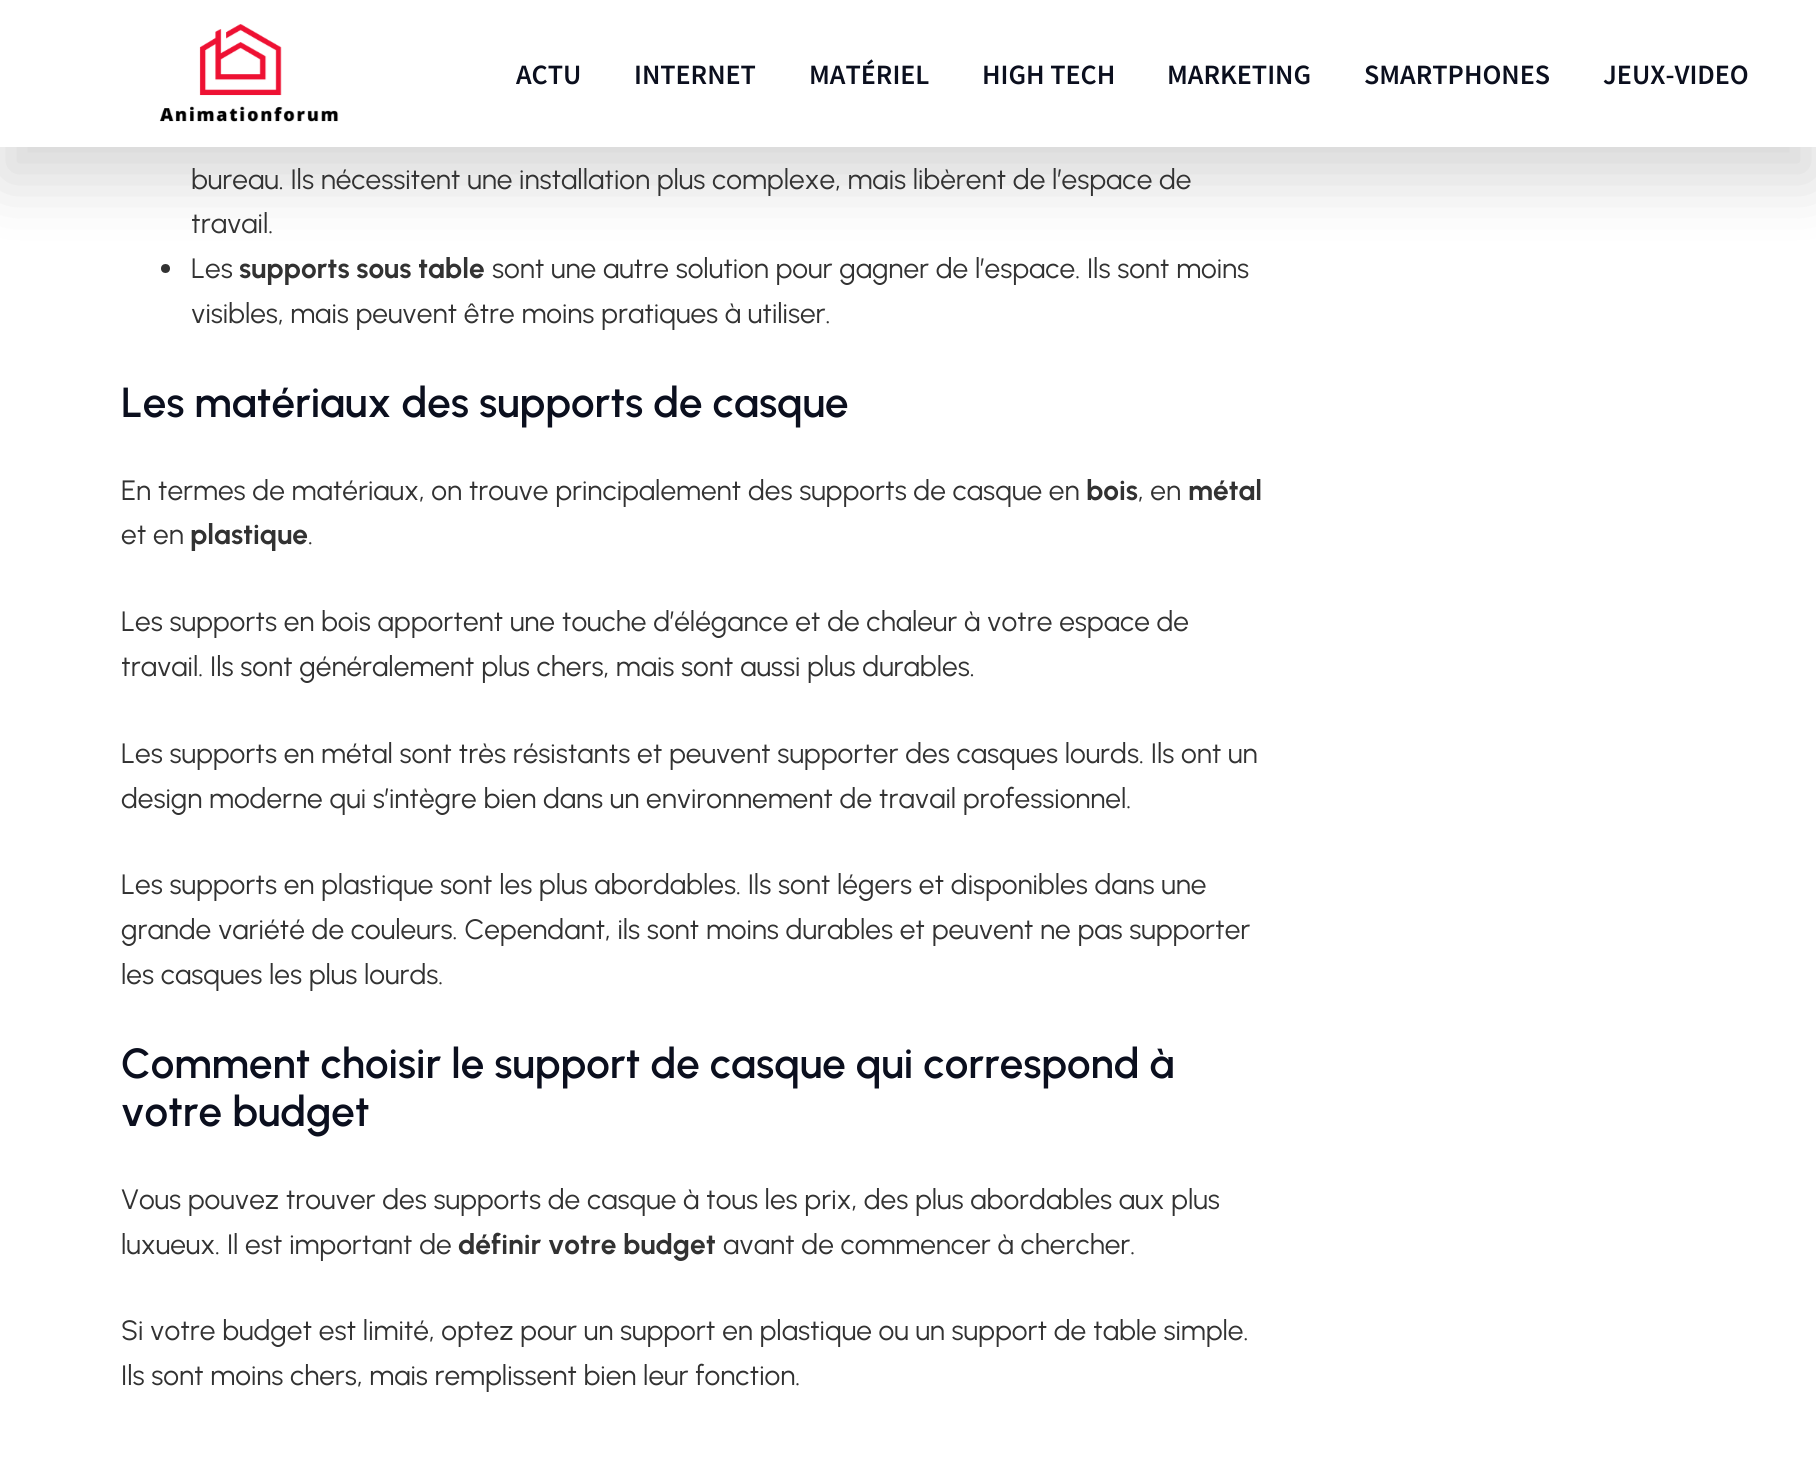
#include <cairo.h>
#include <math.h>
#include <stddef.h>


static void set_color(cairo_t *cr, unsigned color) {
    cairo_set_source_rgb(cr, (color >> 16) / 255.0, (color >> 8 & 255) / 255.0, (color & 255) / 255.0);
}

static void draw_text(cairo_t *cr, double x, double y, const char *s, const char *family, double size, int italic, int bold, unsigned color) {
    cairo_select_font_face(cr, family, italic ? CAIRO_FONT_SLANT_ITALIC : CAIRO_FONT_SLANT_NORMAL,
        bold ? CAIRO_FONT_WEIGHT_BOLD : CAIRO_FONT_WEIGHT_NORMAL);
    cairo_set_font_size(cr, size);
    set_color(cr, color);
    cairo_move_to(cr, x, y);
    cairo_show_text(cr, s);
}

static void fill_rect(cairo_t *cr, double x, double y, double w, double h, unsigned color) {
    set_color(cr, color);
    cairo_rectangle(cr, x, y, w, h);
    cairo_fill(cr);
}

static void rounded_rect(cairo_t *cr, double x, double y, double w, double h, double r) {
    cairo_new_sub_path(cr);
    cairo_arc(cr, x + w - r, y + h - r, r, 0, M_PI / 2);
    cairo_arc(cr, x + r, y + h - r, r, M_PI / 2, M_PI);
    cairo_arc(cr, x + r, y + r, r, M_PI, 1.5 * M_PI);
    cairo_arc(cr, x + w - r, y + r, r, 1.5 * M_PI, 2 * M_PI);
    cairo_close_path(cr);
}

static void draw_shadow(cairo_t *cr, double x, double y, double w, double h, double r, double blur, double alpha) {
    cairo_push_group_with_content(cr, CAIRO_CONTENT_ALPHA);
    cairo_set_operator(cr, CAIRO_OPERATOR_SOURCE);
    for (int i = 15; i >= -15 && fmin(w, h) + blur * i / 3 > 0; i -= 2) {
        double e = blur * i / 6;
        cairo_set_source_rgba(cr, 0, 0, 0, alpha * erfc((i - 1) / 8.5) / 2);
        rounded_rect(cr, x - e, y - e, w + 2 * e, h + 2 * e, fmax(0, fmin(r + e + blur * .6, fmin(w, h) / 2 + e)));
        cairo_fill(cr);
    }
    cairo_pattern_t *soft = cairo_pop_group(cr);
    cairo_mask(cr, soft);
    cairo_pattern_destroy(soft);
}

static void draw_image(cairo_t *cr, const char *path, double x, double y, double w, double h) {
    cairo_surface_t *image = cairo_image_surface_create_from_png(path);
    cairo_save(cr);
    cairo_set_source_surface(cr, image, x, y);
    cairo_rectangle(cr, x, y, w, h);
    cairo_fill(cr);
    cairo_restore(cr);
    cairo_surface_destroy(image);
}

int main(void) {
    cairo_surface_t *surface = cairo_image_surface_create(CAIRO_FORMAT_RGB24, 1816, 1460);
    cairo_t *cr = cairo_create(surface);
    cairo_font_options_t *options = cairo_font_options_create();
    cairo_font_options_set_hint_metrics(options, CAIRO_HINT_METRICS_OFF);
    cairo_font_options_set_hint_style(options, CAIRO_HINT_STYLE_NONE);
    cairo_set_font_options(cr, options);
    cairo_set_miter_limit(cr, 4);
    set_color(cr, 0xFFFFFF);
    cairo_paint(cr);
    set_color(cr, 0x323232);
    cairo_arc(cr, 165.5, 268.5, 4.5, 0, 2 * M_PI);
    cairo_fill(cr);
    set_color(cr, 0x000000);
    draw_shadow(cr, 0, 33, 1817, 147, 0, 33, 0.16);
    fill_rect(cr, 0, 0, 1816, 147, 0xFFFFFF);
    draw_image(cr, "assets/img1.png", 159, 24, 180, 98);
    draw_text(cr, 516, 84, "ACTU", "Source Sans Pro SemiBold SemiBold", 28, 0, 0, 0x0B0F1E);
    draw_text(cr, 634, 84, "INTERNET", "Source Sans Pro SemiBold SemiBold", 28, 0, 0, 0x0B0F1E);
    draw_text(cr, 809, 84, "MATÉRIEL", "Source Sans Pro SemiBold SemiBold", 28, 0, 0, 0x0B0F1E);
    draw_text(cr, 982, 84, "HIGH TECH", "Source Sans Pro SemiBold SemiBold", 28, 0, 0, 0x0B0F1E);
    draw_text(cr, 1167, 84, "MARKETING", "Source Sans Pro SemiBold SemiBold", 28, 0, 0, 0x0B0F1E);
    draw_text(cr, 1364, 84, "SMARTPHONES", "Source Sans Pro SemiBold SemiBold", 28, 0, 0, 0x0B0F1E);
    draw_text(cr, 1603, 84, "JEUX-VIDEO", "Source Sans Pro SemiBold SemiBold", 28, 0, 0, 0x0B0F1E);
    draw_text(cr, 191, 189, "bureau. Ils nécessitent une installation plus complexe, mais libèrent de l’espace de", "Urbanist", 28, 0, 0, 0x323232);
    draw_text(cr, 191, 233, "travail.", "Urbanist", 28, 0, 0, 0x323232);
    draw_text(cr, 191, 278, "Les", "Urbanist", 28, 0, 0, 0x323232);
    draw_text(cr, 239, 278, "supports sous table", "Urbanist", 28, 0, 1, 0x323232);
    draw_text(cr, 492, 278, "sont une autre solution pour gagner de l’espace. Ils sont moins", "Urbanist", 28, 0, 0, 0x323232);
    draw_text(cr, 191, 323, "visibles, mais peuvent être moins pratiques à utiliser.", "Urbanist", 28, 0, 0, 0x323232);
    draw_text(cr, 121, 417, "Les matériaux des supports de casque", "Urbanist SemiBold", 42, 0, 0, 0x0B0F1E);
    draw_text(cr, 121, 500, "En termes de matériaux, on trouve principalement des supports de casque en", "Urbanist", 28, 0, 0, 0x323232);
    draw_text(cr, 1086, 500, "bois", "Urbanist", 28, 0, 1, 0x323232);
    draw_text(cr, 1138, 500, ", en", "Urbanist", 28, 0, 0, 0x323232);
    draw_text(cr, 1188, 500, "métal", "Urbanist", 28, 0, 1, 0x323232);
    draw_text(cr, 121, 544, "et en", "Urbanist", 28, 0, 0, 0x323232);
    draw_text(cr, 190, 544, "plastique", "Urbanist", 28, 0, 1, 0x323232);
    draw_text(cr, 308, 544, ".", "Urbanist", 28, 0, 0, 0x323232);
    draw_text(cr, 121, 631, "Les supports en bois apportent une touche d’élégance et de chaleur à votre espace de", "Urbanist", 28, 0, 0, 0x323232);
    draw_text(cr, 121, 676, "travail. Ils sont généralement plus chers, mais sont aussi plus durables.", "Urbanist", 28, 0, 0, 0x323232);
    draw_text(cr, 121, 763, "Les supports en métal sont très résistants et peuvent supporter des casques lourds. Ils ont un", "Urbanist", 28, 0, 0, 0x323232);
    draw_text(cr, 121, 808, "design moderne qui s’intègre bien dans un environnement de travail professionnel.", "Urbanist", 28, 0, 0, 0x323232);
    draw_text(cr, 121, 894, "Les supports en plastique sont les plus abordables. Ils sont légers et disponibles dans une", "Urbanist", 28, 0, 0, 0x323232);
    draw_text(cr, 121, 939, "grande variété de couleurs. Cependant, ils sont moins durables et peuvent ne pas supporter", "Urbanist", 28, 0, 0, 0x323232);
    draw_text(cr, 121, 984, "les casques les plus lourds.", "Urbanist", 28, 0, 0, 0x323232);
    draw_text(cr, 121, 1078, "Comment choisir le support de casque qui correspond à", "Urbanist SemiBold", 42, 0, 0, 0x0B0F1E);
    draw_text(cr, 121, 1126, "votre budget", "Urbanist SemiBold", 42, 0, 0, 0x0B0F1E);
    draw_text(cr, 121, 1209, "Vous pouvez trouver des supports de casque à tous les prix, des plus abordables aux plus", "Urbanist", 28, 0, 0, 0x323232);
    draw_text(cr, 121, 1254, "luxueux. Il est important de", "Urbanist", 28, 0, 0, 0x323232);
    draw_text(cr, 458, 1254, "définir votre budget", "Urbanist", 28, 0, 1, 0x323232);
    draw_text(cr, 723, 1254, "avant de commencer à chercher.", "Urbanist", 28, 0, 0, 0x323232);
    draw_text(cr, 121, 1340, "Si votre budget est limité, optez pour un support en plastique ou un support de table simple.", "Urbanist", 28, 0, 0, 0x323232);
    draw_text(cr, 121, 1385, "Ils sont moins chers, mais remplissent bien leur fonction.", "Urbanist", 28, 0, 0, 0x323232);
    cairo_surface_write_to_png(surface, "output.png");
    cairo_font_options_destroy(options);
    cairo_destroy(cr);
    cairo_surface_destroy(surface);
    return 0;
}
